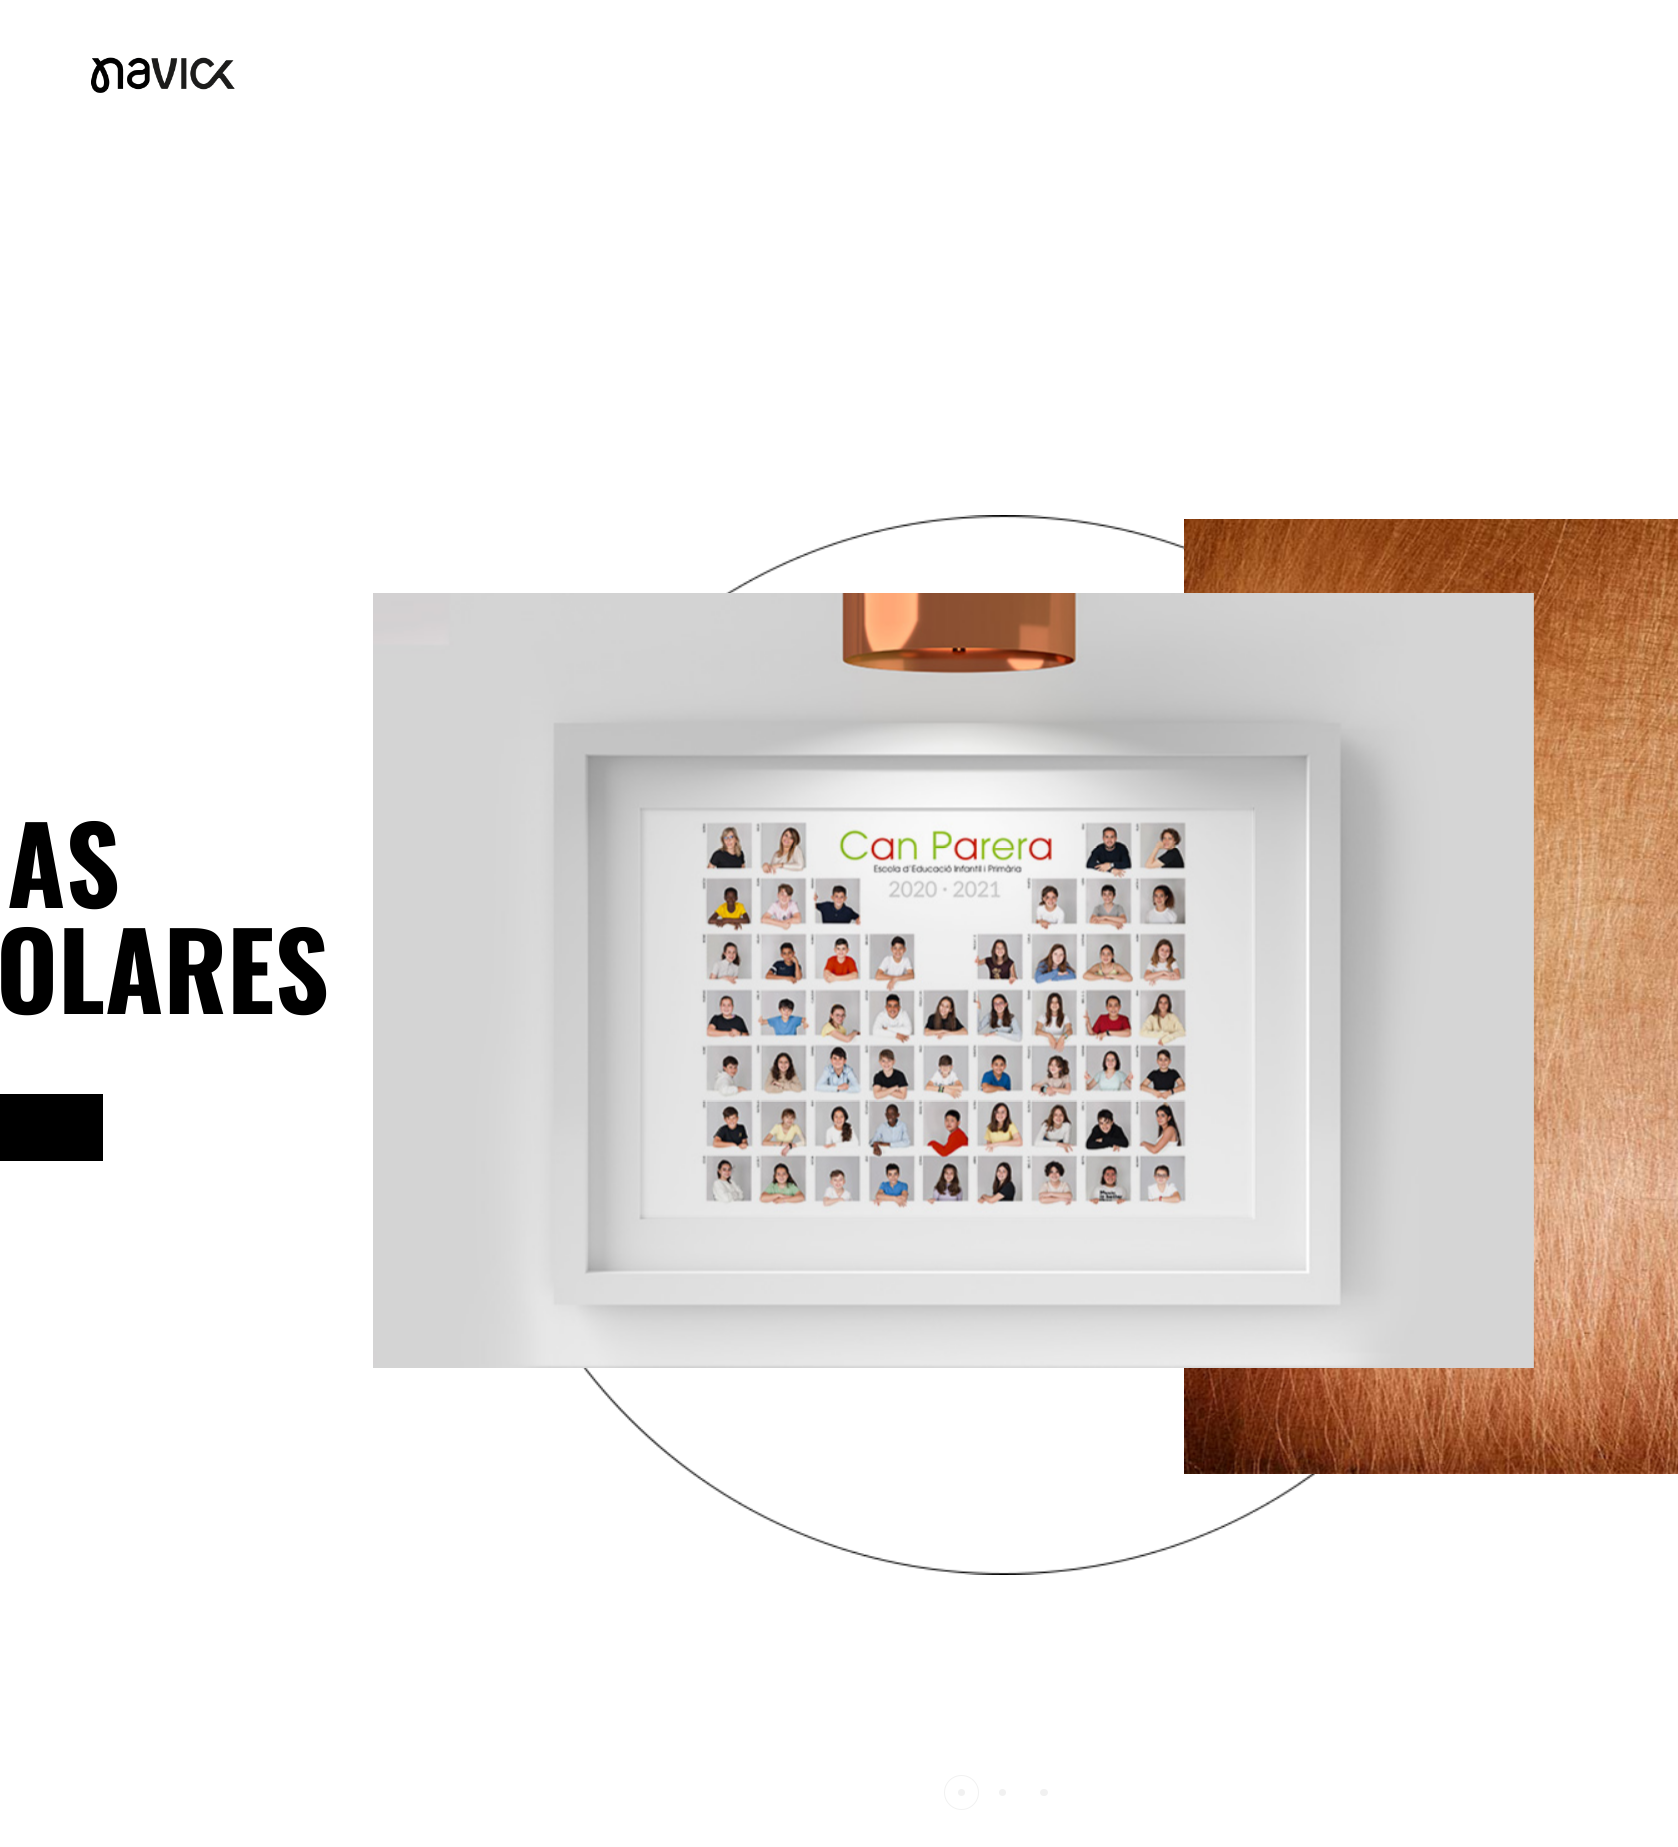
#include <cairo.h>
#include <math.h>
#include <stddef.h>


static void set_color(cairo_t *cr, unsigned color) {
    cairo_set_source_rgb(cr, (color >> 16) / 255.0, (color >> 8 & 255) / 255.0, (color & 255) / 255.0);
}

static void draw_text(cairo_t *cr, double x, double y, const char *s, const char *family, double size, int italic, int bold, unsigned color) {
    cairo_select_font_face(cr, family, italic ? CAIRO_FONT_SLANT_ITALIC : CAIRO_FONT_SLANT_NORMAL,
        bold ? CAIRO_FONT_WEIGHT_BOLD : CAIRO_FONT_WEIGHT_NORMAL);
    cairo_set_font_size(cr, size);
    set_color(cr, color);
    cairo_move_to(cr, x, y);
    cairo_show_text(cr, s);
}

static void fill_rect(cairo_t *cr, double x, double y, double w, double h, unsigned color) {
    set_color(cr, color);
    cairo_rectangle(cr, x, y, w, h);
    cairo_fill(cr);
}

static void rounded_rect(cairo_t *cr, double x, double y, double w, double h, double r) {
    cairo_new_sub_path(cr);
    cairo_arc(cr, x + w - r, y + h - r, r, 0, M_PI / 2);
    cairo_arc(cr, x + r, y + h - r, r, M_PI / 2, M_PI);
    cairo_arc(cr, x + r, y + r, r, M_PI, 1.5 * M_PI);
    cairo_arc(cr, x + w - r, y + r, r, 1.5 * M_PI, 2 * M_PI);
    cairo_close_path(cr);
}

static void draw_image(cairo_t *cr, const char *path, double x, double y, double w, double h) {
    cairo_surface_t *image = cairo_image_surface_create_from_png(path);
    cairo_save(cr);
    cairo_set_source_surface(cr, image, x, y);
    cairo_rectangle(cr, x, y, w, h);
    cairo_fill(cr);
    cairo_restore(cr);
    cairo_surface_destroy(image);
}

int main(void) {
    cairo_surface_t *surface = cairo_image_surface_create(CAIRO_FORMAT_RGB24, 1678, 1847);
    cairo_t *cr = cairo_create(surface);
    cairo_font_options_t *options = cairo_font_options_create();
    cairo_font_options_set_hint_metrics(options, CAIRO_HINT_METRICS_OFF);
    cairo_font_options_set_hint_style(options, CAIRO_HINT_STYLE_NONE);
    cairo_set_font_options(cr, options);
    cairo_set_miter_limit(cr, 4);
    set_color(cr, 0xFFFFFF);
    cairo_paint(cr);
    draw_image(cr, "assets/img1.png", 91, 57, 144, 36);
    draw_image(cr, "assets/img2.png", 582, 515, 733, 1060);
    draw_image(cr, "assets/img3.png", 1184, 519, 494, 955);
    draw_text(cr, 7, 908, "AS", "Oswald", 106, 0, 1, 0x000000);
    draw_text(cr, -4, 1014, "OLARES", "Oswald", 106, 0, 1, 0x000000);
    draw_image(cr, "assets/img4.png", 373, 593, 1161, 775);
    fill_rect(cr, 0, 1094, 103, 67, 0x000000);
    cairo_arc(cr, 961.5, 1792.5, 17, 0, 2 * M_PI);
    set_color(cr, 0xF1F1F1);
    cairo_set_line_width(cr, 1);
    cairo_stroke(cr);
    cairo_arc(cr, 961.5, 1792.5, 3.5, 0, 2 * M_PI);
    cairo_fill(cr);
    cairo_arc(cr, 1002.5, 1792.5, 3.5, 0, 2 * M_PI);
    cairo_fill(cr);
    rounded_rect(cr, 1040, 1789, 8, 7, 3.5);
    cairo_fill(cr);
    cairo_surface_write_to_png(surface, "output.png");
    cairo_font_options_destroy(options);
    cairo_destroy(cr);
    cairo_surface_destroy(surface);
    return 0;
}
